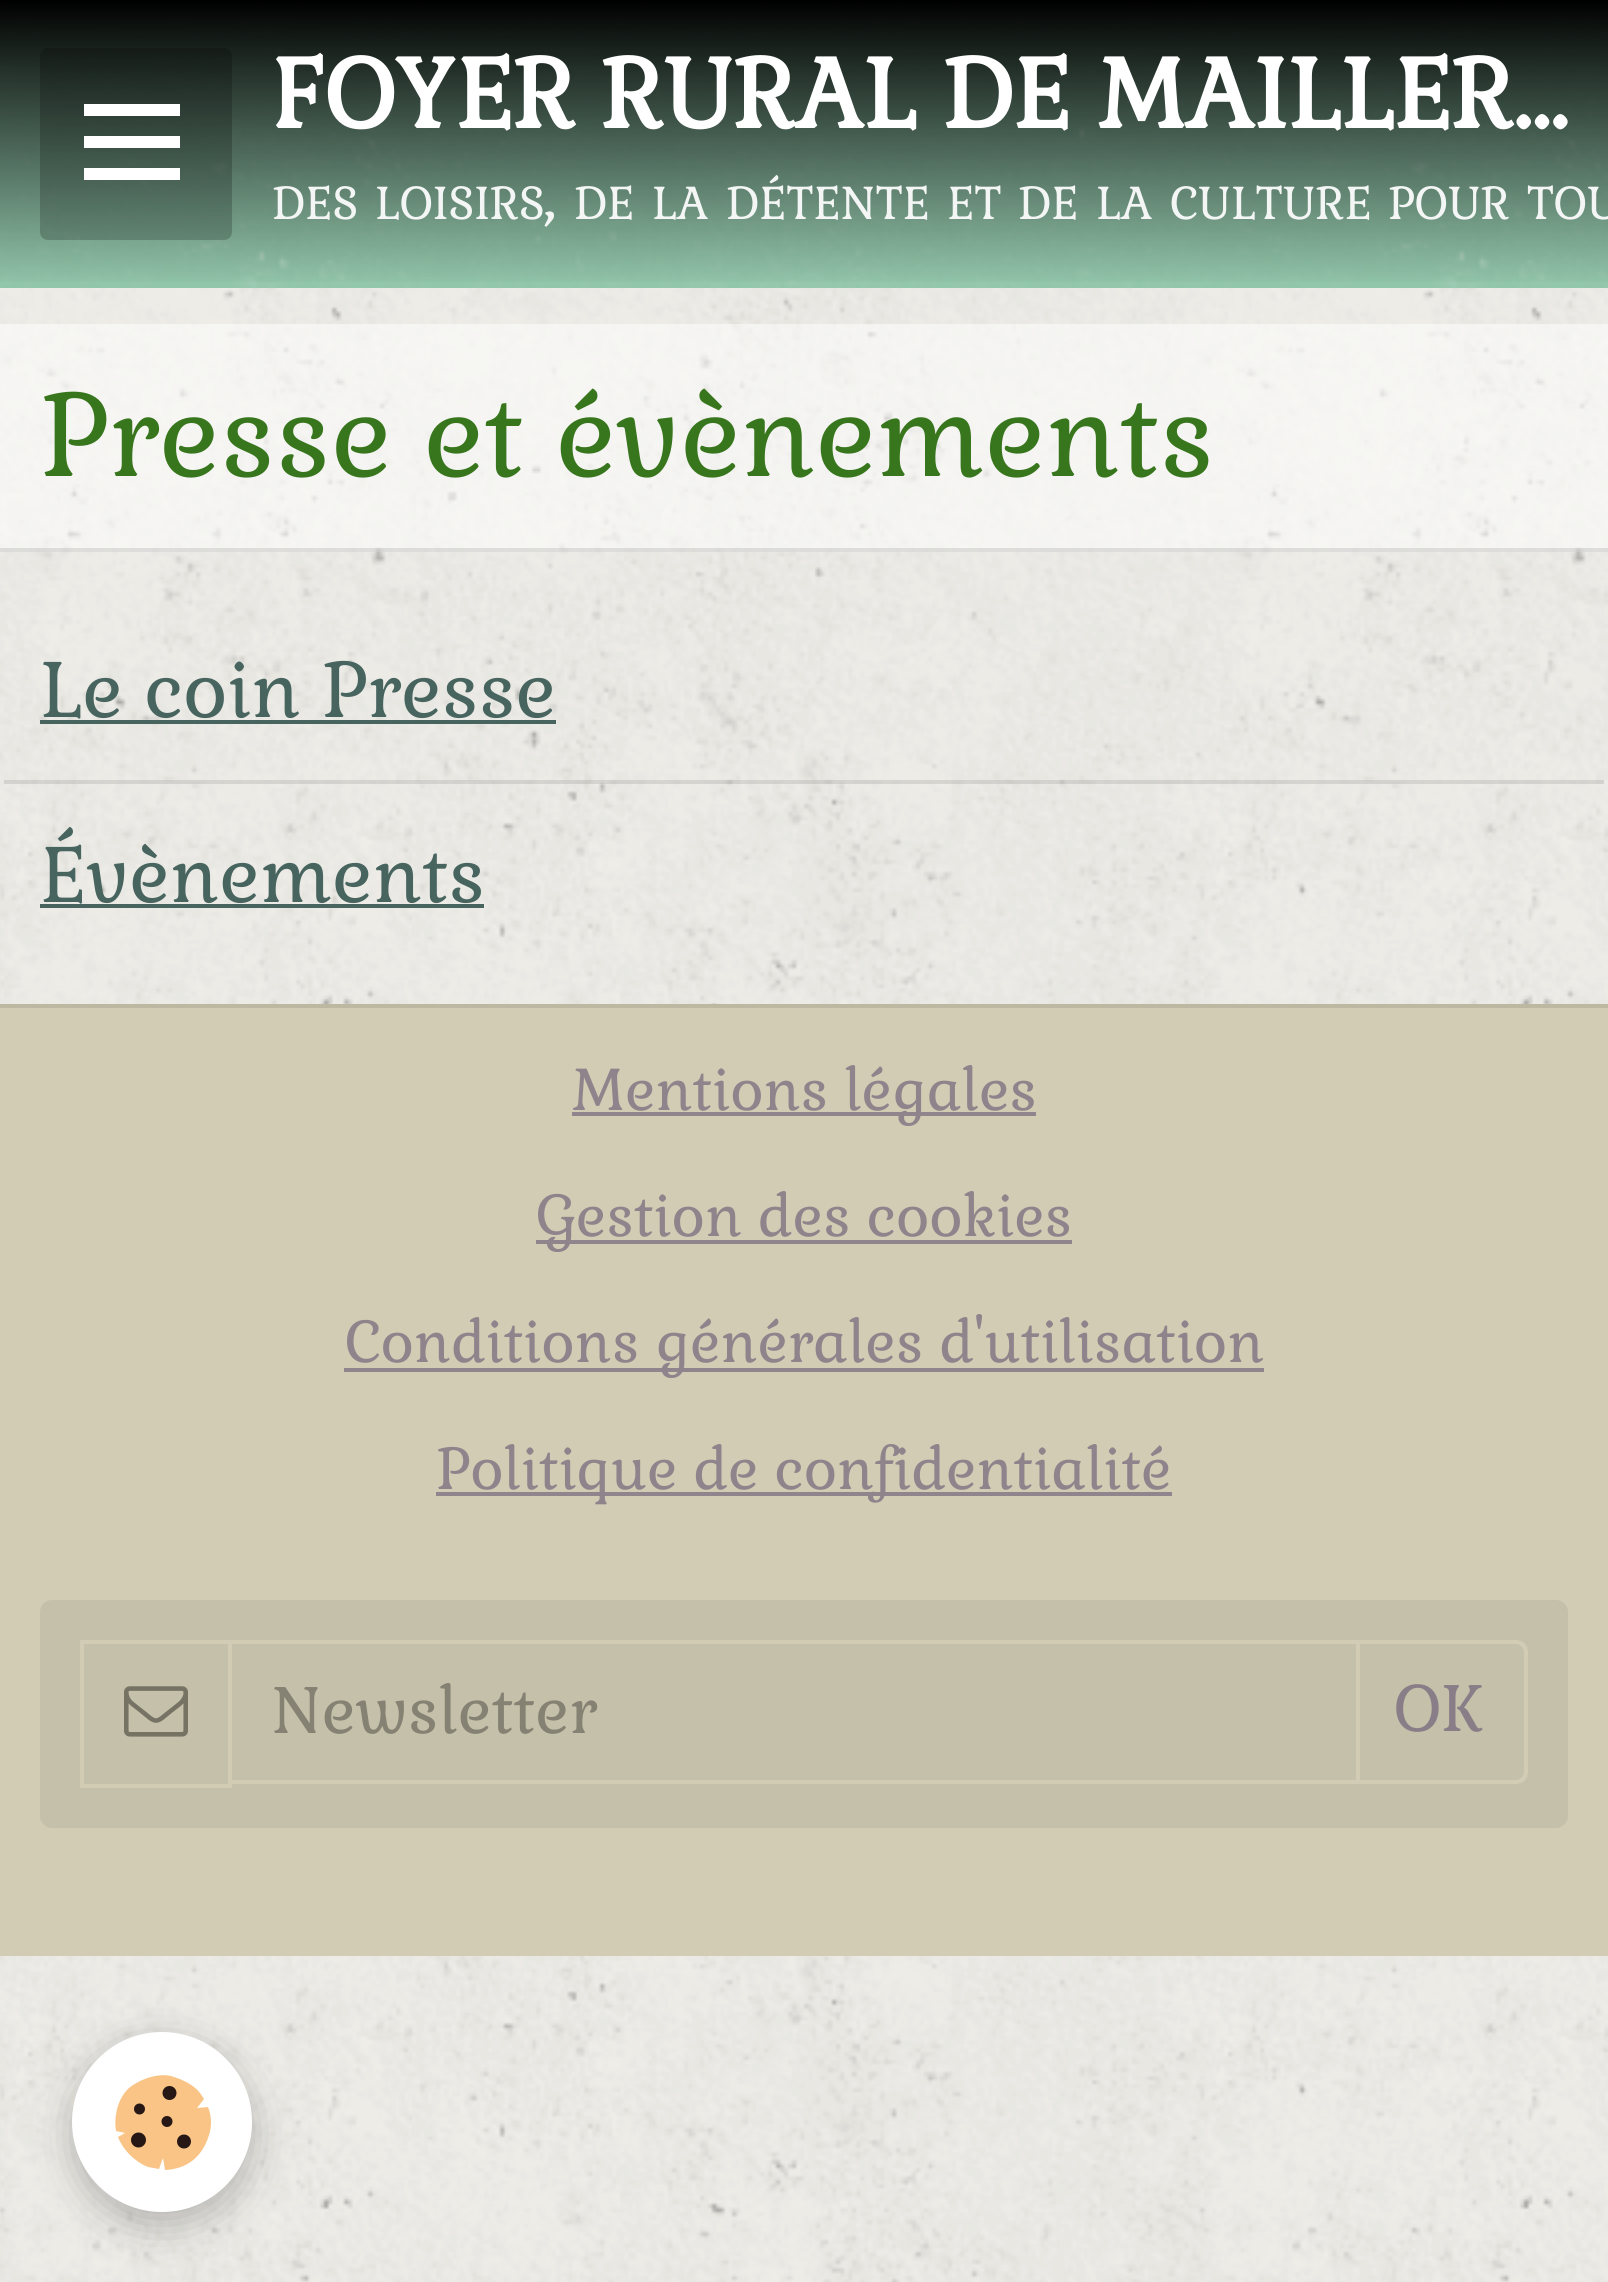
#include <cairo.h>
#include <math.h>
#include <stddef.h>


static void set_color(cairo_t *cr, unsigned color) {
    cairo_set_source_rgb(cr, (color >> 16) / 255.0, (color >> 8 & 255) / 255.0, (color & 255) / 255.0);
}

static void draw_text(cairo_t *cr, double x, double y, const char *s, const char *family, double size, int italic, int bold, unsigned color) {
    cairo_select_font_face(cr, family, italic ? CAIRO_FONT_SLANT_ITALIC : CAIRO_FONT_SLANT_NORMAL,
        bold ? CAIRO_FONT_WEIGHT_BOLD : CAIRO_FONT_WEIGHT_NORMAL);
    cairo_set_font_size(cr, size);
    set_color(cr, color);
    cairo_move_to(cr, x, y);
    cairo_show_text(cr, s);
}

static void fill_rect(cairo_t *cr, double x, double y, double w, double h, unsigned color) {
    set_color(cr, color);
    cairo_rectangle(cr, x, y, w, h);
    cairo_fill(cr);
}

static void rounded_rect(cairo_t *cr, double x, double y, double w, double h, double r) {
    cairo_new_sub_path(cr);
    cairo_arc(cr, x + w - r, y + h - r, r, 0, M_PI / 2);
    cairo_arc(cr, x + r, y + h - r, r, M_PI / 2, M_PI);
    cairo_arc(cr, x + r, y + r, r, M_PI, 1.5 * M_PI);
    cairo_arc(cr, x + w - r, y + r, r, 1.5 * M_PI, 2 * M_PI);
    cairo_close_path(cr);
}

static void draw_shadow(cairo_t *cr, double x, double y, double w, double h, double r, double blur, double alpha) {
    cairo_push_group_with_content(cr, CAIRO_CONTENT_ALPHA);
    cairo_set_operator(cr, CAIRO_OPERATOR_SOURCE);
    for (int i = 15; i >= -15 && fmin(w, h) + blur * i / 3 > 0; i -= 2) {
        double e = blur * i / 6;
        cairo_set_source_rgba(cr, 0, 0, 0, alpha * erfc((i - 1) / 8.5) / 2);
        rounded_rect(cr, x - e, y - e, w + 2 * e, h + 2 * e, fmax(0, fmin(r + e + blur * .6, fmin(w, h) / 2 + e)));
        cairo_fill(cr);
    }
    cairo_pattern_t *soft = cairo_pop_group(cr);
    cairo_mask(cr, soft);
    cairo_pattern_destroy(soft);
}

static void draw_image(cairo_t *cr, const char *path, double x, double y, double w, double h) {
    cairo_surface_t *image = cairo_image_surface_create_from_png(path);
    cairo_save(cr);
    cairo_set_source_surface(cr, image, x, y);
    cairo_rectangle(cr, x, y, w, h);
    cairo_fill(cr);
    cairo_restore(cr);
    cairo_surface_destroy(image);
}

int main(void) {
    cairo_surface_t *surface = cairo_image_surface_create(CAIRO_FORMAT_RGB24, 1608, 2282);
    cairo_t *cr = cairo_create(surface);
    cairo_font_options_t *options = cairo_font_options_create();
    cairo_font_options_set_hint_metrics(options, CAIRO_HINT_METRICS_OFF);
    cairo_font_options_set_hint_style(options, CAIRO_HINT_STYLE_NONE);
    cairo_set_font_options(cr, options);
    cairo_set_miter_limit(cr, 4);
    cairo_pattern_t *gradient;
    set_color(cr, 0xF1F0EB);
    cairo_paint(cr);
    draw_image(cr, "assets/img1.png", 0, 288, 1608, 1994);
    fill_rect(cr, 0, 2, 1608, 286, 0x90C5A9);
    draw_image(cr, "assets/img2.png", 0, 2, 1608, 286);
    gradient = cairo_pattern_create_linear(804, 0, 804, 288);
    cairo_pattern_add_color_stop_rgba(gradient, 0, 0, 0, 0, 1);
    cairo_pattern_add_color_stop_rgba(gradient, 1, 0, 0, 0, 0);
    cairo_set_source(cr, gradient);
    cairo_pattern_destroy(gradient);
    cairo_rectangle(cr, 0, 0, 1608, 282);
    cairo_fill(cr);
    cairo_set_source_rgba(cr, 0, 0, 0, 0.2);
    rounded_rect(cr, 40, 48, 192, 192, 8);
    cairo_fill(cr);
    fill_rect(cr, 84, 136, 96, 12, 0xFFFFFF);
    fill_rect(cr, 84, 104, 96, 12, 0xFFFFFF);
    fill_rect(cr, 84, 168, 96, 12, 0xFFFFFF);
    draw_text(cr, 272, 128, "FOYER RURAL DE MAILLER…", "Gabriela", 96, 0, 1, 0xFFFFFF);
    draw_text(cr, 272, 219, "DES", "Gabriela", 45, 0, 0, 0xF3F6F4);
    draw_text(cr, 375, 219, "LOISIRS", "Gabriela", 45, 0, 0, 0xF3F6F4);
    draw_text(cr, 544, 219, ",", "Gabriela", 64, 0, 0, 0xF3F6F4);
    draw_text(cr, 574, 219, "DE", "Gabriela", 45, 0, 0, 0xF3F6F4);
    draw_text(cr, 652, 219, "LA", "Gabriela", 45, 0, 0, 0xF3F6F4);
    draw_text(cr, 726, 219, "DÉTENTE", "Gabriela", 45, 0, 0, 0xF3F6F4);
    draw_text(cr, 947, 219, "ET", "Gabriela", 45, 0, 0, 0xF3F6F4);
    draw_text(cr, 1018, 219, "DE", "Gabriela", 45, 0, 0, 0xF3F6F4);
    draw_text(cr, 1096, 219, "LA", "Gabriela", 45, 0, 0, 0xF3F6F4);
    draw_text(cr, 1170, 219, "CULTURE", "Gabriela", 45, 0, 0, 0xF3F6F4);
    draw_text(cr, 1388, 219, "POUR", "Gabriela", 45, 0, 0, 0xF3F6F4);
    draw_text(cr, 1527, 219, "TOU", "Gabriela", 45, 0, 0, 0xF3F6F4);
    cairo_set_source_rgba(cr, 1, 1, 1, 0.5);
    cairo_rectangle(cr, 0, 324, 1608, 228);
    cairo_fill(cr);
    cairo_set_source_rgba(cr, 0, 0, 0, 0.1);
    cairo_rectangle(cr, 0, 548, 1608, 4);
    cairo_fill(cr);
    draw_text(cr, 40, 476, "Presse et évènements", "Gabriela", 115.25, 0, 0, 0x38761D);
    cairo_set_source_rgba(cr, 0, 0, 0, 0.1);
    cairo_rectangle(cr, 4, 780, 1600, 4);
    cairo_fill(cr);
    draw_text(cr, 40, 717, "Le coin Presse", "Gabriela", 76.75, 0, 0, 0x48645F);
    cairo_set_source_rgba(cr, 0.255, 0.373, 0.353, 0.96);
    cairo_rectangle(cr, 40, 720, 516, 4);
    cairo_fill(cr);
    draw_text(cr, 40, 902, "Évènements", "Gabriela", 76.75, 0, 0, 0x48645F);
    cairo_set_source_rgba(cr, 0.255, 0.373, 0.353, 0.96);
    cairo_rectangle(cr, 40, 904, 444, 4);
    cairo_fill(cr);
    fill_rect(cr, 0, 1008, 1608, 948, 0xD1CCB3);
    fill_rect(cr, 0, 1004, 1608, 4, 0xBCB8A1);
    fill_rect(cr, 572, 1112, 464, 4, 0x90848D);
    draw_text(cr, 572, 1110, "Mentions légales", "Gabriela", 57.6, 0, 0, 0x8F848C);
    fill_rect(cr, 536, 1240, 536, 4, 0x90848D);
    draw_text(cr, 536, 1236, "Gestion des cookies", "Gabriela", 57.6, 0, 0, 0x8F848C);
    fill_rect(cr, 344, 1368, 920, 4, 0x90848D);
    draw_text(cr, 345, 1362, "Conditions générales d'utilisation", "Gabriela", 57.6, 0, 0, 0x8F848C);
    fill_rect(cr, 436, 1492, 736, 4, 0x90848D);
    draw_text(cr, 436, 1489, "Politique de confidentialité", "Gabriela", 57.6, 0, 0, 0x8F848C);
    set_color(cr, 0xC4C0A9);
    rounded_rect(cr, 40, 1600, 1528, 228, 12);
    cairo_fill(cr);
    cairo_rectangle(cr, 82, 1642, 148, 144);
    set_color(cr, 0xD1CCB3);
    cairo_set_line_width(cr, 4);
    cairo_stroke(cr);
    draw_image(cr, "assets/img3.png", 124, 1686, 64, 51);
    cairo_rectangle(cr, 230, 1642, 1128, 140);
    cairo_stroke(cr);
    draw_text(cr, 272, 1733, "Newsletter", "Gabriela", 64, 0, 0, 0x858273);
    set_color(cr, 0xD1CCB3);
    cairo_set_fill_rule(cr, CAIRO_FILL_RULE_EVEN_ODD);
    cairo_new_path(cr);
    cairo_move_to(cr, 1356, 1640);
    cairo_line_to(cr, 1516, 1640);
    cairo_curve_to(cr, 1523, 1640, 1528, 1645, 1528, 1652);
    cairo_line_to(cr, 1528, 1772);
    cairo_curve_to(cr, 1528, 1779, 1523, 1784, 1516, 1784);
    cairo_line_to(cr, 1356, 1784);
    cairo_close_path(cr);
    cairo_move_to(cr, 1356, 1644);
    cairo_line_to(cr, 1516, 1644);
    cairo_curve_to(cr, 1520, 1644, 1524, 1648, 1524, 1652);
    cairo_line_to(cr, 1524, 1772);
    cairo_curve_to(cr, 1524, 1776, 1520, 1780, 1516, 1780);
    cairo_line_to(cr, 1356, 1780);
    cairo_close_path(cr);
    cairo_fill(cr);
    draw_text(cr, 1394, 1731, "OK", "Gabriela", 64, 0, 0, 0x897E88);
    set_color(cr, 0x000000);
    draw_shadow(cr, 72, 2044, 180, 180, 90, 20, 0.24);
    set_color(cr, 0xFFFFFF);
    cairo_arc(cr, 162, 2122, 90, 0, 2 * M_PI);
    cairo_fill(cr);
    set_color(cr, 0xF9C485);
    cairo_set_fill_rule(cr, CAIRO_FILL_RULE_WINDING);
    cairo_new_path(cr);
    cairo_move_to(cr, 159, 2169);
    cairo_line_to(cr, 163, 2158);
    cairo_line_to(cr, 165, 2170);
    cairo_curve_to(cr, 186, 2169, 201, 2158, 208, 2138);
    cairo_curve_to(cr, 212, 2128, 212, 2117, 208, 2107);
    cairo_line_to(cr, 197, 2108);
    cairo_line_to(cr, 204, 2099);
    cairo_curve_to(cr, 201, 2094, 198, 2090, 194, 2087);
    cairo_curve_to(cr, 185, 2080, 174, 2077, 171, 2076);
    cairo_curve_to(cr, 153, 2072, 132, 2084, 127, 2090);
    cairo_curve_to(cr, 116, 2102, 114, 2120, 116, 2131);
    cairo_line_to(cr, 125, 2133);
    cairo_line_to(cr, 118, 2137);
    cairo_curve_to(cr, 123, 2150, 135, 2162, 148, 2167);
    cairo_close_path(cr);
    cairo_fill(cr);
    set_color(cr, 0x281815);
    cairo_arc(cr, 184, 2141.5, 7, 0, 2 * M_PI);
    cairo_fill(cr);
    cairo_arc(cr, 169.5, 2093, 7, 0, 2 * M_PI);
    cairo_fill(cr);
    cairo_arc(cr, 138.5, 2140, 7.5, 0, 2 * M_PI);
    cairo_fill(cr);
    cairo_arc(cr, 167, 2121.5, 5.5, 0, 2 * M_PI);
    cairo_fill(cr);
    cairo_arc(cr, 139.5, 2109, 5.5, 0, 2 * M_PI);
    cairo_fill(cr);
    cairo_surface_write_to_png(surface, "output.png");
    cairo_font_options_destroy(options);
    cairo_destroy(cr);
    cairo_surface_destroy(surface);
    return 0;
}
